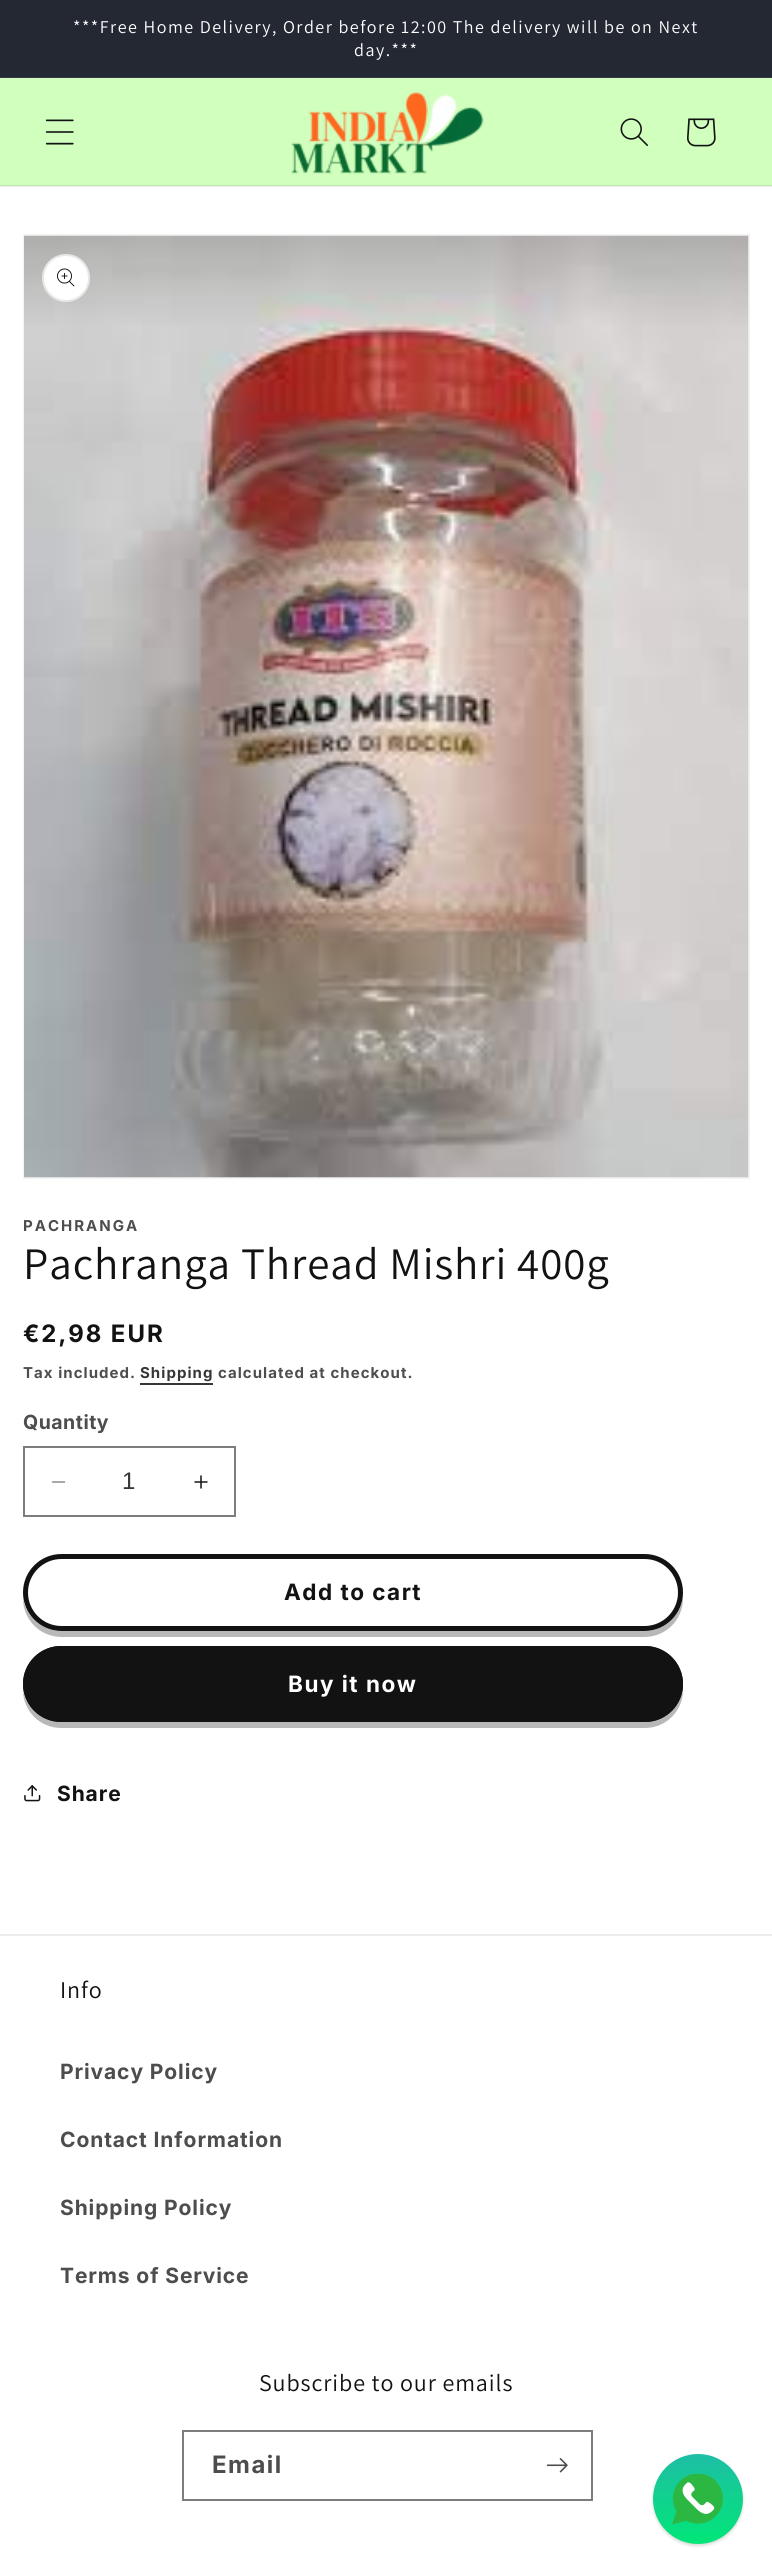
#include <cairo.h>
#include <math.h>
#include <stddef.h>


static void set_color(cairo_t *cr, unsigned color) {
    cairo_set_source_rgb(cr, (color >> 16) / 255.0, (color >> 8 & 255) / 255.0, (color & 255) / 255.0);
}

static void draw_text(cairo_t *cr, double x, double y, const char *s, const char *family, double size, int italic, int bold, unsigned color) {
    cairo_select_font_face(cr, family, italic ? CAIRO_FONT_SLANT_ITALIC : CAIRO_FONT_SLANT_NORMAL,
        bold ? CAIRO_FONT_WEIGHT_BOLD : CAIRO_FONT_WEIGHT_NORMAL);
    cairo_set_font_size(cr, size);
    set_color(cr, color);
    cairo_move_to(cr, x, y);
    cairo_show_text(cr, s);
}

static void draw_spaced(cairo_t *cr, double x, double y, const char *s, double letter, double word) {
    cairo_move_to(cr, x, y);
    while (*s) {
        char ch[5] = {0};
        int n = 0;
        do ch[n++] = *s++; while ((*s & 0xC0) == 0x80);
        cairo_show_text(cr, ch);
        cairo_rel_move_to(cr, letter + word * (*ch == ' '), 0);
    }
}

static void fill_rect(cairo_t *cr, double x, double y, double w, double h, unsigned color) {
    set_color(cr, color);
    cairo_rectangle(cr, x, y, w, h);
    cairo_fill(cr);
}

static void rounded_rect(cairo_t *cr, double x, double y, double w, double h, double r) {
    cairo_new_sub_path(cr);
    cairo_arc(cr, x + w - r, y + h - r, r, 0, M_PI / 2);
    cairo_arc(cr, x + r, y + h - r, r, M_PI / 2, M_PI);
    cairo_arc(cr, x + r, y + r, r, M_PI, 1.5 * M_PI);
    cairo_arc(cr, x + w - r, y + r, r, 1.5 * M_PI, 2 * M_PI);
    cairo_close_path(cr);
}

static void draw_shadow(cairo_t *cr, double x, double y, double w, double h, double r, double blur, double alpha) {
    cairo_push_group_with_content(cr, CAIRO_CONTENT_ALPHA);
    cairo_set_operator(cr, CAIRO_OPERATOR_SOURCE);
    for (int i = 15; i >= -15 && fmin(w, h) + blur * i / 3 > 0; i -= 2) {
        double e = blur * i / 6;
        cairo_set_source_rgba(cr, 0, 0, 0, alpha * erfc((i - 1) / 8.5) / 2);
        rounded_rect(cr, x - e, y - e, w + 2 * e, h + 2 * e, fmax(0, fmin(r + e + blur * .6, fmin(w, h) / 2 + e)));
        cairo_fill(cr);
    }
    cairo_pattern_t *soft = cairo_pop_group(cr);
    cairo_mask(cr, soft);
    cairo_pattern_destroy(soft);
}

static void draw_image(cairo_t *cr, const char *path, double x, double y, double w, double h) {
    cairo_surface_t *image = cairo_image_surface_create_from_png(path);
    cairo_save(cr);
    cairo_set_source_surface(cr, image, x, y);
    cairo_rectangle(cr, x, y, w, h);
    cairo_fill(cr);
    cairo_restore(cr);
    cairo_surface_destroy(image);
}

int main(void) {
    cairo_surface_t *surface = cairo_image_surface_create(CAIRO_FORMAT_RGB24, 772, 2574);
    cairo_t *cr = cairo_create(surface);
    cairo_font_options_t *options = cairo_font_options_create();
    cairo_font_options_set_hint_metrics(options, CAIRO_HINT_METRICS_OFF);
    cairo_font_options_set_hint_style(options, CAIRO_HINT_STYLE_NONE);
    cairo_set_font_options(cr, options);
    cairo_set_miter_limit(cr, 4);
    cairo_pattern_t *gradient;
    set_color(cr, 0xFFFFFF);
    cairo_paint(cr);
    fill_rect(cr, 0, 186, 772, 1, 0xECECEC);
    fill_rect(cr, 0, 0, 772, 77, 0x242833);
    fill_rect(cr, 0, 77, 772, 1, 0x363943);
    cairo_select_font_face(cr, "Assistant", CAIRO_FONT_SLANT_NORMAL, CAIRO_FONT_WEIGHT_NORMAL);
    cairo_set_font_size(cr, 18);
    set_color(cr, 0xFFFFFF);
    draw_spaced(cr, 73, 33, "***Free Home Delivery, Order before 12:00 The delivery will be on Next", 1.5, 0);
    draw_spaced(cr, 354, 56, "day.***", 1.5, 0);
    fill_rect(cr, 0, 79, 772, 106, 0xD1FFBD);
    fill_rect(cr, 0, 78, 772, 1, 0xD5FFC2);
    fill_rect(cr, 0, 185, 772, 1, 0xC2ECAF);
    draw_image(cr, "assets/img1.png", 45, 119, 29, 26);
    draw_image(cr, "assets/img2.png", 291, 91, 193, 83);
    draw_image(cr, "assets/img3.png", 620, 118, 28, 28);
    draw_image(cr, "assets/img4.png", 687, 118, 29, 29);
    cairo_rectangle(cr, 24, 235, 725, 943);
    set_color(cr, 0xF3F3F3);
    cairo_stroke(cr);
    draw_image(cr, "assets/img5.png", 24, 235, 725, 943);
    set_color(cr, 0xFFFFFF);
    cairo_arc(cr, 66, 278, 24, 0, 2 * M_PI);
    cairo_fill(cr);
    cairo_arc(cr, 66, 278, 23, 0, 2 * M_PI);
    cairo_set_source_rgba(cr, 0.071, 0.071, 0.071, 0.1);
    cairo_stroke(cr);
    draw_image(cr, "assets/img6.png", 57, 268, 18, 19);
    cairo_select_font_face(cr, "Inter", CAIRO_FONT_SLANT_NORMAL, CAIRO_FONT_WEIGHT_BOLD);
    cairo_set_font_size(cr, 15);
    set_color(cr, 0x4D4D4D);
    draw_spaced(cr, 23, 1231, "PACHRANGA", 2, 0);
    cairo_select_font_face(cr, "Assistant", CAIRO_FONT_SLANT_NORMAL, CAIRO_FONT_WEIGHT_NORMAL);
    cairo_set_font_size(cr, 45);
    set_color(cr, 0x121212);
    draw_spaced(cr, 23, 1279, "Pachranga Thread Mishri 400g", 0.9, 0);
    cairo_select_font_face(cr, "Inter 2", CAIRO_FONT_SLANT_NORMAL, CAIRO_FONT_WEIGHT_BOLD);
    cairo_set_font_size(cr, 24);
    draw_spaced(cr, 23, 1342, "€2,98 EUR", 2, 0);
    cairo_select_font_face(cr, "Inter", CAIRO_FONT_SLANT_NORMAL, CAIRO_FONT_WEIGHT_BOLD);
    cairo_set_font_size(cr, 15);
    set_color(cr, 0x4D4D4D);
    draw_spaced(cr, 23, 1378, "Tax included.", 1.05, 0);
    set_color(cr, 0x363636);
    draw_spaced(cr, 140, 1378, "Shipping", 1.05, 0);
    fill_rect(cr, 140, 1383, 73, 2, 0x363636);
    set_color(cr, 0x4D4D4D);
    draw_spaced(cr, 218, 1378, "calculated at checkout.", 1.05, 0);
    cairo_set_font_size(cr, 19.5);
    draw_spaced(cr, 23, 1429, "Quantity", 0.5, 0);
    draw_image(cr, "assets/img7.png", 51, 1481, 15, 2);
    draw_image(cr, "assets/img8.png", 194, 1475, 14, 14);
    cairo_rectangle(cr, 24, 1447, 211, 69);
    set_color(cr, 0x7D7D7D);
    cairo_stroke(cr);
    draw_text(cr, 122, 1489, "1", "Liberation Sans", 24, 0, 0, 0x363636);
    set_color(cr, 0xB8B8B8);
    cairo_new_path(cr);
    cairo_move_to(cr, 23, 1598);
    cairo_curve_to(cr, 23, 1620, 40, 1637, 62, 1637);
    cairo_line_to(cr, 644, 1637);
    cairo_curve_to(cr, 666, 1637, 683, 1620, 683, 1598);
    cairo_line_to(cr, 682, 1592);
    cairo_curve_to(cr, 682, 1613, 665, 1630, 644, 1630);
    cairo_line_to(cr, 61, 1630);
    cairo_curve_to(cr, 42, 1630, 26, 1617, 23, 1598);
    cairo_close_path(cr);
    cairo_fill(cr);
    set_color(cr, 0xFFFFFF);
    rounded_rect(cr, 23, 1554, 660, 77, 38.5);
    cairo_fill(cr);
    rounded_rect(cr, 25.5, 1556.5, 655, 72, 36);
    cairo_set_line_width(cr, 5);
    cairo_stroke(cr);
    rounded_rect(cr, 25.5, 1556.5, 655, 72, 36);
    set_color(cr, 0x121212);
    cairo_stroke(cr);
    cairo_select_font_face(cr, "Inter", CAIRO_FONT_SLANT_NORMAL, CAIRO_FONT_WEIGHT_BOLD);
    cairo_set_font_size(cr, 22.5);
    draw_spaced(cr, 284, 1600, "Add to cart", 1.5, 0);
    set_color(cr, 0xB8B8B8);
    cairo_new_path(cr);
    cairo_move_to(cr, 23, 1690);
    cairo_curve_to(cr, 23, 1711, 40, 1728, 61, 1728);
    cairo_line_to(cr, 645, 1728);
    cairo_curve_to(cr, 666, 1728, 683, 1711, 683, 1690);
    cairo_line_to(cr, 682, 1684);
    cairo_curve_to(cr, 682, 1705, 665, 1722, 644, 1722);
    cairo_line_to(cr, 61, 1722);
    cairo_curve_to(cr, 42, 1722, 26, 1708, 23, 1690);
    cairo_close_path(cr);
    cairo_fill(cr);
    set_color(cr, 0x121212);
    rounded_rect(cr, 23, 1646, 660, 76, 38);
    cairo_fill(cr);
    rounded_rect(cr, 25.5, 1648.5, 655, 71, 35.5);
    cairo_stroke(cr);
    set_color(cr, 0xFFFFFF);
    draw_spaced(cr, 288, 1692, "Buy it now", 1.5, 0);
    draw_image(cr, "assets/img9.png", 24, 1785, 17, 17);
    cairo_set_font_size(cr, 21);
    set_color(cr, 0x121212);
    draw_spaced(cr, 57, 1801, "Share", 0.9, 0);
    fill_rect(cr, 0, 1934, 772, 2, 0xECECEC);
    cairo_select_font_face(cr, "Assistant", CAIRO_FONT_SLANT_NORMAL, CAIRO_FONT_WEIGHT_NORMAL);
    cairo_set_font_size(cr, 24);
    set_color(cr, 0x121212);
    draw_spaced(cr, 60, 1998, "Info", 0.9, 0);
    cairo_select_font_face(cr, "Inter", CAIRO_FONT_SLANT_NORMAL, CAIRO_FONT_WEIGHT_BOLD);
    cairo_set_font_size(cr, 21);
    set_color(cr, 0x4D4D4D);
    draw_spaced(cr, 60, 2079, "Privacy Policy", 0.9, 0);
    draw_spaced(cr, 60, 2147, "Contact Information", 0.9, 0);
    draw_spaced(cr, 60, 2215, "Shipping Policy", 0.9, 0);
    draw_spaced(cr, 60, 2283, "Terms of Service", 0.9, 0);
    cairo_select_font_face(cr, "Assistant", CAIRO_FONT_SLANT_NORMAL, CAIRO_FONT_WEIGHT_NORMAL);
    cairo_set_font_size(cr, 24);
    set_color(cr, 0x121212);
    draw_spaced(cr, 259, 2391, "Subscribe to our emails", 0.9, 0);
    cairo_rectangle(cr, 183, 2431, 409, 69);
    set_color(cr, 0x7D7D7D);
    cairo_set_line_width(cr, 2);
    cairo_stroke(cr);
    cairo_select_font_face(cr, "Inter 2", CAIRO_FONT_SLANT_NORMAL, CAIRO_FONT_WEIGHT_BOLD);
    set_color(cr, 0x4D4D4D);
    draw_spaced(cr, 212, 2473, "Email", 1.5, 0);
    draw_image(cr, "assets/img10.png", 546, 2458, 22, 15);
    set_color(cr, 0x000000);
    draw_shadow(cr, 653, 2456, 90, 90, 45, 1.5, 0.15);
    gradient = cairo_pattern_create_linear(698, 2454, 698, 2544);
    cairo_pattern_add_color_stop_rgba(gradient, 0, 0.118, 0.745, 0.647, 1);
    cairo_pattern_add_color_stop_rgba(gradient, 1, 0.004, 0.902, 0.467, 1);
    cairo_set_source(cr, gradient);
    cairo_pattern_destroy(gradient);
    cairo_arc(cr, 698, 2499, 45, 0, 2 * M_PI);
    cairo_fill(cr);
    draw_image(cr, "assets/img11.png", 672, 2474, 51, 51);
    cairo_surface_write_to_png(surface, "output.png");
    cairo_font_options_destroy(options);
    cairo_destroy(cr);
    cairo_surface_destroy(surface);
    return 0;
}
